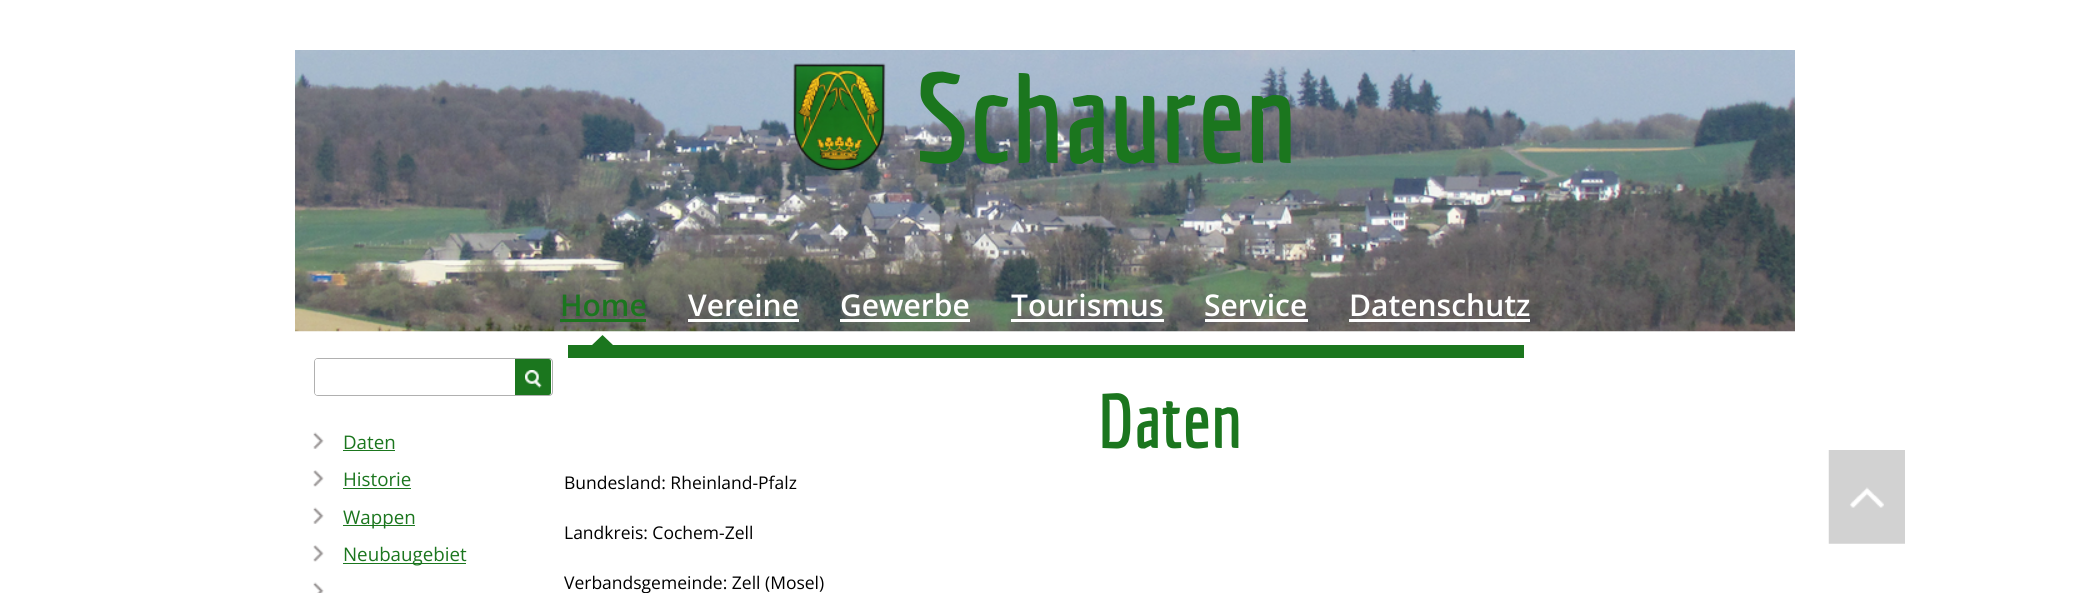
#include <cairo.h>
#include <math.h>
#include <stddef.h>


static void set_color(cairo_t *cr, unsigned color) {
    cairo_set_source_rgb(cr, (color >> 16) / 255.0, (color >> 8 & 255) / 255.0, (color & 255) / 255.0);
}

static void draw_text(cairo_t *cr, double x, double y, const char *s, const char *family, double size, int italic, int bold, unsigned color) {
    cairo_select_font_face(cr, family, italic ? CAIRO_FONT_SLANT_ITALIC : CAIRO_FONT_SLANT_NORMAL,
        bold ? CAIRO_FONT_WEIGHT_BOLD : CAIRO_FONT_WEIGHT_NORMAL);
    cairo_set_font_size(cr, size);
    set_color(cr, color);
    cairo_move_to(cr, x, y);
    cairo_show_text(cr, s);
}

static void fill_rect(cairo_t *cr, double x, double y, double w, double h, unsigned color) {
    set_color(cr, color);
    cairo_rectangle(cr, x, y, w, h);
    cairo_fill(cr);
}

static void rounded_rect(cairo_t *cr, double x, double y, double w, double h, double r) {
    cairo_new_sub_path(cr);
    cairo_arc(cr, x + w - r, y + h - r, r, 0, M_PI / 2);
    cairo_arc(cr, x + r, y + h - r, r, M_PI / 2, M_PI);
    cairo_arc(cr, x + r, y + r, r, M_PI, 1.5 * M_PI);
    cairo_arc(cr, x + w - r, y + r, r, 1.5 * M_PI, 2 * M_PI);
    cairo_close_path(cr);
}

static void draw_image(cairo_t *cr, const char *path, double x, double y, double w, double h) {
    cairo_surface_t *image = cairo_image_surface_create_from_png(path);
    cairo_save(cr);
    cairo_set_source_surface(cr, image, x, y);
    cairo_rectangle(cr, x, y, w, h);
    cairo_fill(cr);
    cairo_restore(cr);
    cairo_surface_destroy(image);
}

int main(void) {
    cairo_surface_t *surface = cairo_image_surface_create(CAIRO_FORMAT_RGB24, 2089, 593);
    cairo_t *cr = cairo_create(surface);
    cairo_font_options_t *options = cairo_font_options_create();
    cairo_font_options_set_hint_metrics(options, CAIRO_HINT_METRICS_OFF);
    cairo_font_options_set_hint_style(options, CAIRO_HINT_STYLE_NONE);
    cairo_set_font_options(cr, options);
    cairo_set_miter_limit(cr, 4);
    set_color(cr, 0xFFFFFF);
    cairo_paint(cr);
    draw_image(cr, "assets/img1.png", 295, 50, 1500, 282);
    draw_image(cr, "assets/img2.png", 793, 63, 93, 109);
    draw_text(cr, 915, 163, "Schauren", "Economica", 125, 0, 1, 0x1B761E);
    draw_text(cr, 560, 316, "Home", "Open Sans SemiBold", 30, 0, 0, 0x1B761E);
    fill_rect(cr, 560, 319, 86, 3, 0x1B761E);
    cairo_new_path(cr);
    cairo_move_to(cr, 614, 346);
    cairo_line_to(cr, 591, 346);
    cairo_line_to(cr, 602.5, 335);
    cairo_close_path(cr);
    cairo_fill(cr);
    draw_text(cr, 688, 316, "Vereine", "Open Sans SemiBold", 30, 0, 0, 0xFFFFFF);
    fill_rect(cr, 688, 319, 111, 3, 0xFFFFFF);
    draw_text(cr, 840, 316, "Gewerbe", "Open Sans SemiBold", 30, 0, 0, 0xFFFFFF);
    fill_rect(cr, 840, 319, 130, 3, 0xFFFFFF);
    draw_text(cr, 1011, 316, "Tourismus", "Open Sans SemiBold", 30, 0, 0, 0xFFFFFF);
    fill_rect(cr, 1011, 319, 153, 3, 0xFFFFFF);
    draw_text(cr, 1204, 316, "Service", "Open Sans SemiBold", 30, 0, 0, 0xFFFFFF);
    fill_rect(cr, 1205, 319, 103, 3, 0xFFFFFF);
    draw_text(cr, 1349, 316, "Datenschutz", "Open Sans SemiBold", 30, 0, 0, 0xFFFFFF);
    fill_rect(cr, 1349, 319, 181, 3, 0xFFFFFF);
    fill_rect(cr, 568, 345, 956, 13, 0x1B761E);
    rounded_rect(cr, 314.5, 358.5, 238, 37, 3.5);
    set_color(cr, 0xB0B0B0);
    cairo_set_line_width(cr, 1);
    cairo_stroke(cr);
    set_color(cr, 0xFFFFFF);
    cairo_new_path(cr);
    cairo_move_to(cr, 317.5, 359);
    cairo_line_to(cr, 515, 359);
    cairo_line_to(cr, 515, 395);
    cairo_line_to(cr, 317.5, 395);
    cairo_curve_to(cr, 316, 395, 315, 394, 315, 392.5);
    cairo_line_to(cr, 315, 361.5);
    cairo_curve_to(cr, 315, 360, 316, 359, 317.5, 359);
    cairo_close_path(cr);
    cairo_fill(cr);
    set_color(cr, 0x1B761E);
    cairo_new_path(cr);
    cairo_move_to(cr, 515, 359);
    cairo_line_to(cr, 548.5, 359);
    cairo_curve_to(cr, 550, 359, 551, 360, 551, 361.5);
    cairo_line_to(cr, 551, 392.5);
    cairo_curve_to(cr, 551, 394, 550, 395, 548.5, 395);
    cairo_line_to(cr, 515, 395);
    cairo_close_path(cr);
    cairo_fill(cr);
    draw_image(cr, "assets/img3.png", 525, 370, 17, 18);
    draw_image(cr, "assets/img4.png", 313, 432, 11, 17);
    draw_text(cr, 343, 449, "Daten", "Open Sans", 18.75, 0, 0, 0x1B761E);
    fill_rect(cr, 343, 450, 52, 1, 0x1B761E);
    draw_image(cr, "assets/img5.png", 313, 470, 11, 17);
    draw_text(cr, 343, 486, "Historie", "Open Sans", 18.75, 0, 0, 0x1B761E);
    fill_rect(cr, 343, 488, 68, 1, 0x1B761E);
    draw_image(cr, "assets/img4.png", 313, 507, 11, 17);
    fill_rect(cr, 343, 525, 72, 1, 0x1B761E);
    draw_text(cr, 343, 524, "Wappen", "Open Sans", 18.75, 0, 0, 0x1B761E);
    draw_image(cr, "assets/img5.png", 313, 545, 11, 17);
    fill_rect(cr, 343, 563, 123, 1, 0x1B761E);
    draw_text(cr, 343, 561, "Neubaugebiet", "Open Sans", 18.75, 0, 0, 0x1B761E);
    draw_image(cr, "assets/img6.png", 313, 582, 11, 11);
    draw_text(cr, 1098, 448, "Daten", "Economica", 75, 0, 1, 0x1B761E);
    draw_text(cr, 564, 489, "Bundesland: Rheinland-Pfalz", "Open Sans", 17.5, 0, 0, 0x000000);
    draw_text(cr, 564, 539, "Landkreis: Cochem-Zell", "Open Sans", 17.5, 0, 0, 0x000000);
    draw_text(cr, 564, 589, "Verbandsgemeinde: Zell (Mosel)", "Open Sans", 17.5, 0, 0, 0x000000);
    draw_image(cr, "assets/img7.png", 1828, 450, 77, 94);
    cairo_surface_write_to_png(surface, "output.png");
    cairo_font_options_destroy(options);
    cairo_destroy(cr);
    cairo_surface_destroy(surface);
    return 0;
}
